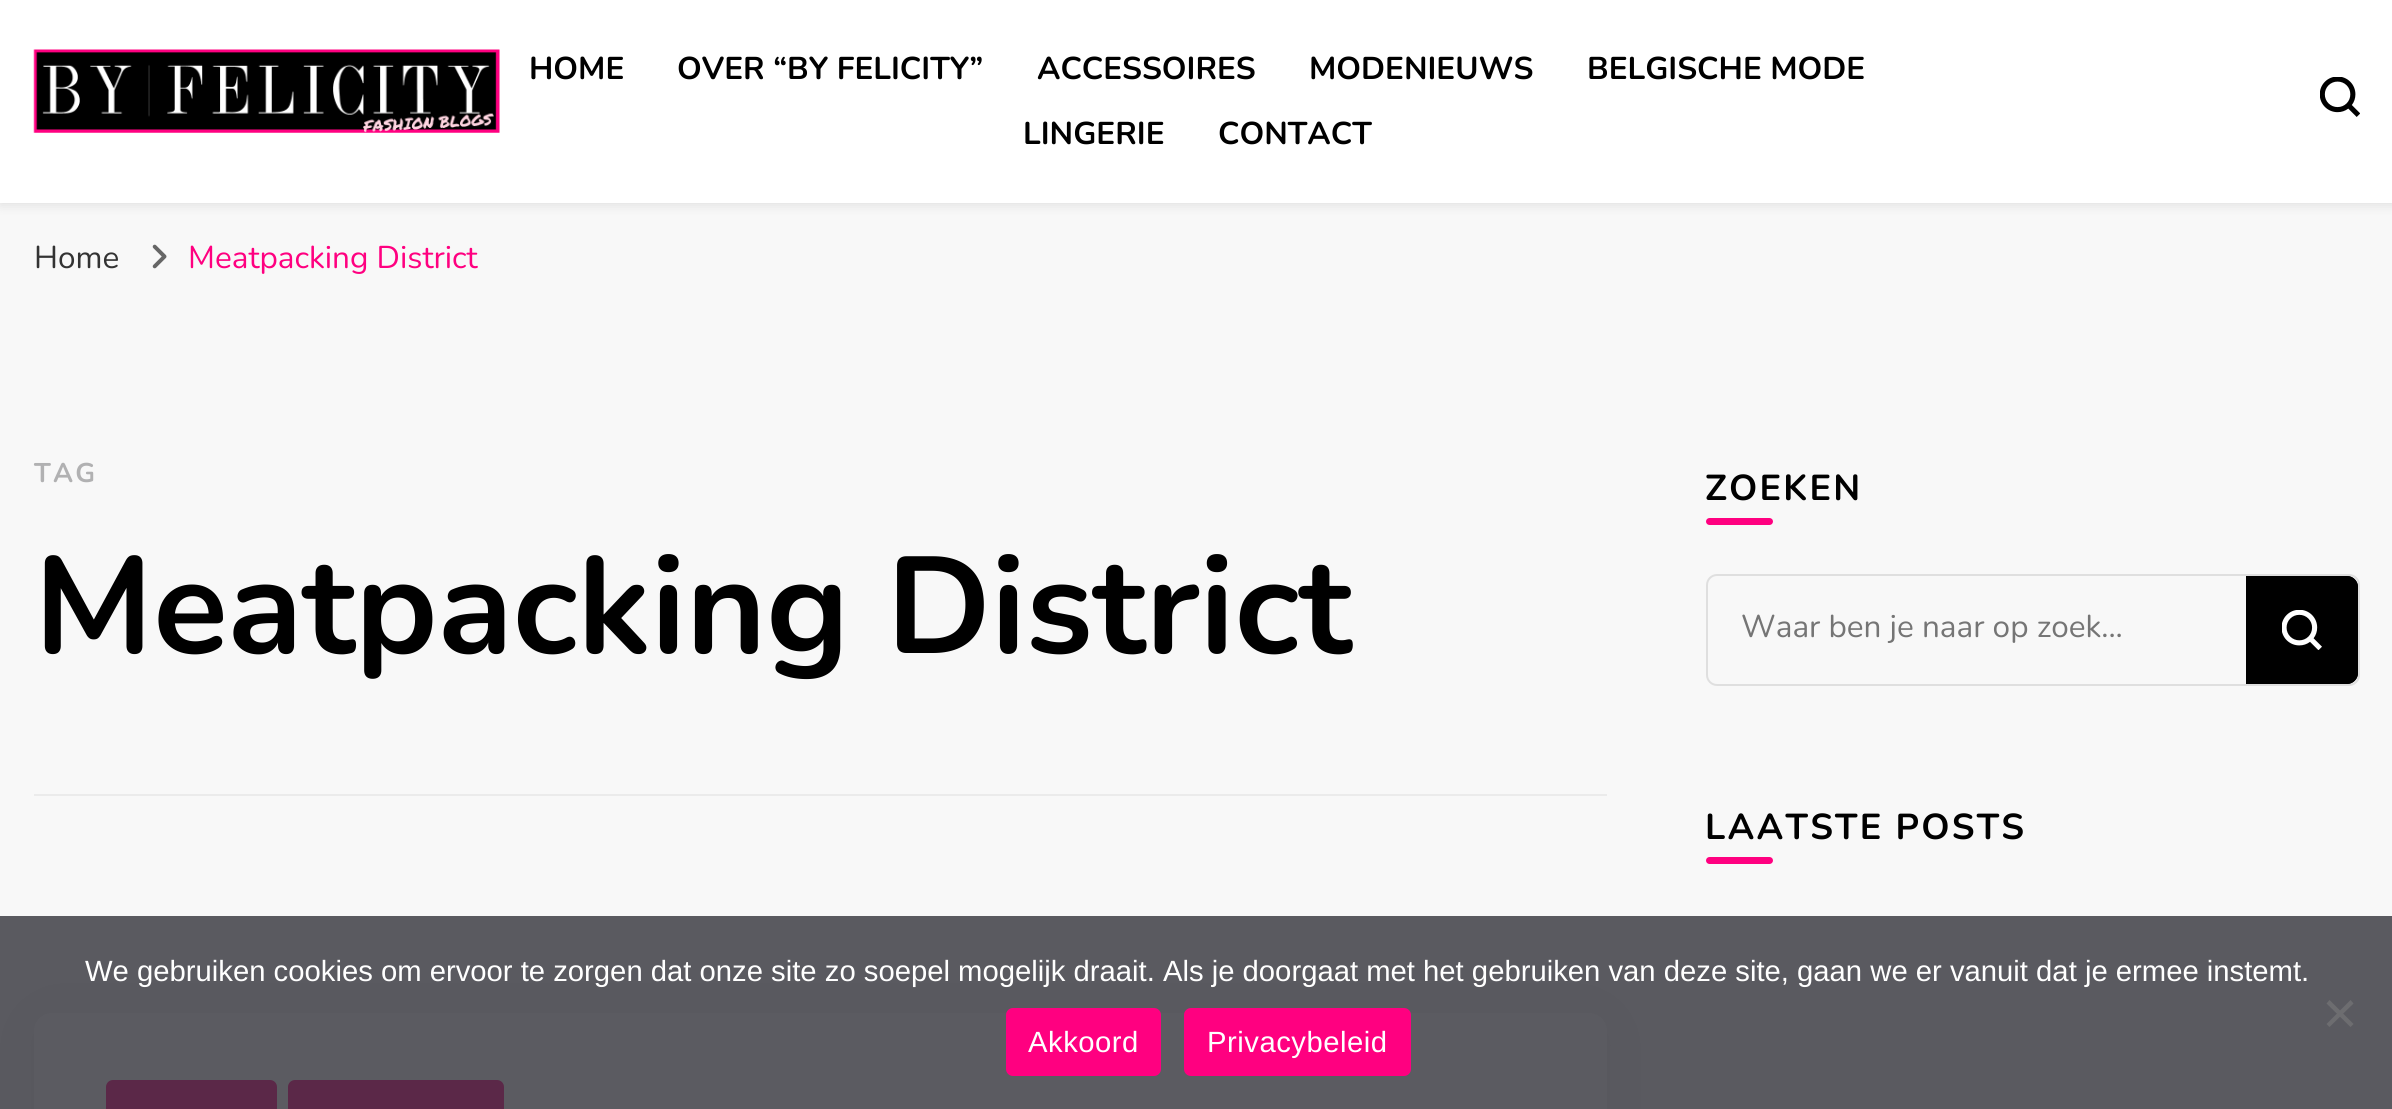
#include <cairo.h>
#include <math.h>
#include <stddef.h>


static void set_color(cairo_t *cr, unsigned color) {
    cairo_set_source_rgb(cr, (color >> 16) / 255.0, (color >> 8 & 255) / 255.0, (color & 255) / 255.0);
}

static void draw_text(cairo_t *cr, double x, double y, const char *s, const char *family, double size, int italic, int bold, unsigned color) {
    cairo_select_font_face(cr, family, italic ? CAIRO_FONT_SLANT_ITALIC : CAIRO_FONT_SLANT_NORMAL,
        bold ? CAIRO_FONT_WEIGHT_BOLD : CAIRO_FONT_WEIGHT_NORMAL);
    cairo_set_font_size(cr, size);
    set_color(cr, color);
    cairo_move_to(cr, x, y);
    cairo_show_text(cr, s);
}

static void draw_spaced(cairo_t *cr, double x, double y, const char *s, double letter, double word) {
    cairo_move_to(cr, x, y);
    while (*s) {
        char ch[5] = {0};
        int n = 0;
        do ch[n++] = *s++; while ((*s & 0xC0) == 0x80);
        cairo_show_text(cr, ch);
        cairo_rel_move_to(cr, letter + word * (*ch == ' '), 0);
    }
}

static void fill_rect(cairo_t *cr, double x, double y, double w, double h, unsigned color) {
    set_color(cr, color);
    cairo_rectangle(cr, x, y, w, h);
    cairo_fill(cr);
}

static void rounded_rect(cairo_t *cr, double x, double y, double w, double h, double r) {
    cairo_new_sub_path(cr);
    cairo_arc(cr, x + w - r, y + h - r, r, 0, M_PI / 2);
    cairo_arc(cr, x + r, y + h - r, r, M_PI / 2, M_PI);
    cairo_arc(cr, x + r, y + r, r, M_PI, 1.5 * M_PI);
    cairo_arc(cr, x + w - r, y + r, r, 1.5 * M_PI, 2 * M_PI);
    cairo_close_path(cr);
}

static void draw_shadow(cairo_t *cr, double x, double y, double w, double h, double r, double blur, double alpha) {
    cairo_push_group_with_content(cr, CAIRO_CONTENT_ALPHA);
    cairo_set_operator(cr, CAIRO_OPERATOR_SOURCE);
    for (int i = 15; i >= -15 && fmin(w, h) + blur * i / 3 > 0; i -= 2) {
        double e = blur * i / 6;
        cairo_set_source_rgba(cr, 0, 0, 0, alpha * erfc((i - 1) / 8.5) / 2);
        rounded_rect(cr, x - e, y - e, w + 2 * e, h + 2 * e, fmax(0, fmin(r + e + blur * .6, fmin(w, h) / 2 + e)));
        cairo_fill(cr);
    }
    cairo_pattern_t *soft = cairo_pop_group(cr);
    cairo_mask(cr, soft);
    cairo_pattern_destroy(soft);
}

static void draw_image(cairo_t *cr, const char *path, double x, double y, double w, double h) {
    cairo_surface_t *image = cairo_image_surface_create_from_png(path);
    cairo_save(cr);
    cairo_set_source_surface(cr, image, x, y);
    cairo_rectangle(cr, x, y, w, h);
    cairo_fill(cr);
    cairo_restore(cr);
    cairo_surface_destroy(image);
}

int main(void) {
    cairo_surface_t *surface = cairo_image_surface_create(CAIRO_FORMAT_RGB24, 2392, 1109);
    cairo_t *cr = cairo_create(surface);
    cairo_font_options_t *options = cairo_font_options_create();
    cairo_font_options_set_hint_metrics(options, CAIRO_HINT_METRICS_OFF);
    cairo_font_options_set_hint_style(options, CAIRO_HINT_STYLE_NONE);
    cairo_set_font_options(cr, options);
    cairo_set_miter_limit(cr, 4);
    set_color(cr, 0xF8F8F8);
    cairo_paint(cr);
    set_color(cr, 0x000000);
    draw_shadow(cr, 0, 2, 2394, 203, 0, 5.5, 0.1);
    fill_rect(cr, 0, 0, 2392, 203, 0xFFFFFF);
    draw_image(cr, "assets/img1.png", 33, 49, 467, 84);
    draw_text(cr, 529, 79, "HOME", "Nunito", 31.5, 0, 1, 0x000000);
    draw_text(cr, 677, 79, "OVER “BY FELICITY”", "Nunito", 31.5, 0, 1, 0x000000);
    draw_text(cr, 1037, 79, "ACCESSOIRES", "Nunito", 31.5, 0, 1, 0x000000);
    draw_text(cr, 1309, 79, "MODENIEUWS", "Nunito", 31.5, 0, 1, 0x000000);
    draw_text(cr, 1587, 79, "BELGISCHE MODE", "Nunito", 31.5, 0, 1, 0x000000);
    draw_text(cr, 1023, 144, "LINGERIE", "Nunito", 31.5, 0, 1, 0x000000);
    draw_text(cr, 1218, 144, "CONTACT", "Nunito", 31.5, 0, 1, 0x000000);
    draw_image(cr, "assets/img2.png", 2320, 77, 40, 40);
    draw_text(cr, 34, 268, "Home", "Nunito", 31.5, 0, 0, 0x333333);
    draw_image(cr, "assets/img3.png", 152, 244, 15, 25);
    draw_text(cr, 188, 268, "Meatpacking District", "Nunito", 31.5, 0, 0, 0xFF0080);
    fill_rect(cr, 34, 794, 1573, 2, 0xEBEBEB);
    cairo_select_font_face(cr, "Nunito", CAIRO_FONT_SLANT_NORMAL, CAIRO_FONT_WEIGHT_BOLD);
    cairo_set_font_size(cr, 27);
    set_color(cr, 0xB1B1B2);
    draw_spaced(cr, 34, 482, "TAG", 2.25, 0);
    draw_text(cr, 34, 653, "Meatpacking District", "Nunito", 137.25, 0, 1, 0x000000);
    set_color(cr, 0x000000);
    draw_shadow(cr, 34, 1017, 1573, 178, 18, 22.5, 0.05);
    set_color(cr, 0xFFFFFF);
    rounded_rect(cr, 34, 1013, 1573, 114, 18);
    cairo_fill(cr);
    set_color(cr, 0xFF0080);
    rounded_rect(cr, 106, 1080, 171, 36, 7);
    cairo_fill(cr);
    rounded_rect(cr, 288, 1080, 216, 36, 7);
    cairo_fill(cr);
    cairo_set_font_size(cr, 36);
    set_color(cr, 0x000000);
    draw_spaced(cr, 1705, 500, "ZOEKEN", 2.25, 0);
    set_color(cr, 0xFF0080);
    rounded_rect(cr, 1706, 518, 67, 7, 3.5);
    cairo_fill(cr);
    rounded_rect(cr, 1707, 575, 652, 110, 10);
    set_color(cr, 0xDFDFDF);
    cairo_stroke(cr);
    draw_text(cr, 1741, 637, "Waar ben je naar op zoek...", "Nunito", 31.5, 0, 0, 0x757575);
    set_color(cr, 0x000000);
    cairo_new_path(cr);
    cairo_move_to(cr, 2246, 576);
    cairo_line_to(cr, 2347, 576);
    cairo_curve_to(cr, 2353, 576, 2358, 581, 2358, 587);
    cairo_line_to(cr, 2358, 673);
    cairo_curve_to(cr, 2358, 679, 2353, 684, 2347, 684);
    cairo_line_to(cr, 2246, 684);
    cairo_close_path(cr);
    cairo_fill(cr);
    draw_image(cr, "assets/img4.png", 2282, 610, 40, 40);
    cairo_new_path(cr);
    cairo_move_to(cr, 2247, 577);
    cairo_line_to(cr, 2347, 577);
    cairo_curve_to(cr, 2352.5, 577, 2357, 581.5, 2357, 587);
    cairo_line_to(cr, 2357, 673);
    cairo_curve_to(cr, 2357, 678.5, 2352.5, 683, 2347, 683);
    cairo_line_to(cr, 2247, 683);
    cairo_close_path(cr);
    cairo_stroke(cr);
    cairo_select_font_face(cr, "Nunito", CAIRO_FONT_SLANT_NORMAL, CAIRO_FONT_WEIGHT_BOLD);
    cairo_set_font_size(cr, 36);
    draw_spaced(cr, 1705, 839, "LAATSTE POSTS", 2.25, 0);
    set_color(cr, 0xFF0080);
    rounded_rect(cr, 1706, 857, 67, 7, 3.5);
    cairo_fill(cr);
    cairo_set_source_rgba(cr, 0.196, 0.196, 0.227, 0.8);
    cairo_rectangle(cr, 0, 916, 2392, 193);
    cairo_fill(cr);
    draw_text(cr, 85, 981, "We gebruiken cookies om ervoor te zorgen dat onze site zo soepel mogelijk draait. Als je doorgaat met het gebruiken van deze site, gaan we er vanuit dat je ermee instemt.", "Liberation Sans", 29.25, 0, 0, 0xFFFFFF);
    set_color(cr, 0x6D6D70);
    cairo_new_path(cr);
    cairo_move_to(cr, 2350.5, 1000);
    cairo_line_to(cr, 2353.5, 1003.5);
    cairo_line_to(cr, 2329.5, 1027);
    cairo_line_to(cr, 2326.5, 1024);
    cairo_close_path(cr);
    cairo_fill(cr);
    cairo_new_path(cr);
    cairo_move_to(cr, 2326.5, 1003.5);
    cairo_line_to(cr, 2329.5, 1000);
    cairo_line_to(cr, 2353.5, 1024);
    cairo_line_to(cr, 2350.5, 1027);
    cairo_close_path(cr);
    cairo_fill(cr);
    set_color(cr, 0xFF0080);
    rounded_rect(cr, 1006, 1008, 155, 68, 7);
    cairo_fill(cr);
    set_color(cr, 0xFFFFFF);
    draw_spaced(cr, 1028, 1052, "Akkoord", 0.5, 0);
    set_color(cr, 0xFF0080);
    rounded_rect(cr, 1184, 1008, 227, 68, 7);
    cairo_fill(cr);
    set_color(cr, 0xFFFFFF);
    draw_spaced(cr, 1207, 1052, "Privacybeleid", 0.5, 0);
    cairo_surface_write_to_png(surface, "output.png");
    cairo_font_options_destroy(options);
    cairo_destroy(cr);
    cairo_surface_destroy(surface);
    return 0;
}
